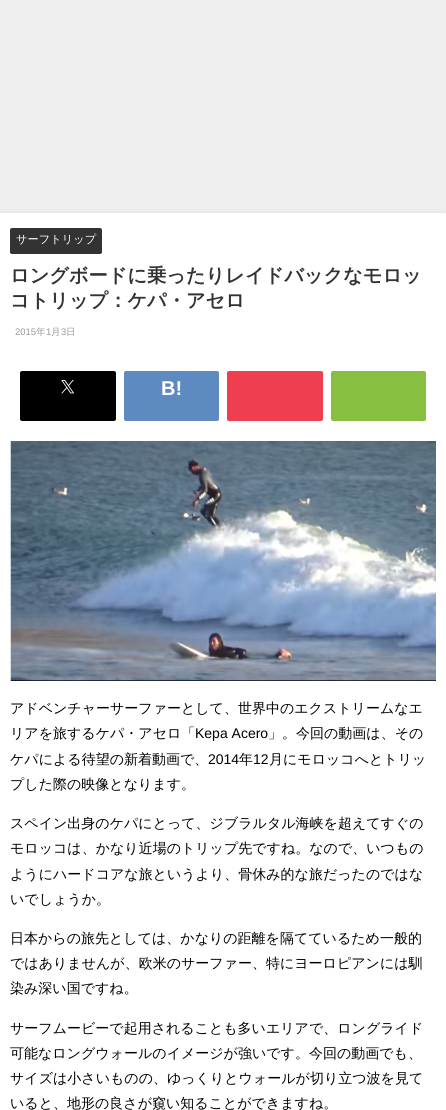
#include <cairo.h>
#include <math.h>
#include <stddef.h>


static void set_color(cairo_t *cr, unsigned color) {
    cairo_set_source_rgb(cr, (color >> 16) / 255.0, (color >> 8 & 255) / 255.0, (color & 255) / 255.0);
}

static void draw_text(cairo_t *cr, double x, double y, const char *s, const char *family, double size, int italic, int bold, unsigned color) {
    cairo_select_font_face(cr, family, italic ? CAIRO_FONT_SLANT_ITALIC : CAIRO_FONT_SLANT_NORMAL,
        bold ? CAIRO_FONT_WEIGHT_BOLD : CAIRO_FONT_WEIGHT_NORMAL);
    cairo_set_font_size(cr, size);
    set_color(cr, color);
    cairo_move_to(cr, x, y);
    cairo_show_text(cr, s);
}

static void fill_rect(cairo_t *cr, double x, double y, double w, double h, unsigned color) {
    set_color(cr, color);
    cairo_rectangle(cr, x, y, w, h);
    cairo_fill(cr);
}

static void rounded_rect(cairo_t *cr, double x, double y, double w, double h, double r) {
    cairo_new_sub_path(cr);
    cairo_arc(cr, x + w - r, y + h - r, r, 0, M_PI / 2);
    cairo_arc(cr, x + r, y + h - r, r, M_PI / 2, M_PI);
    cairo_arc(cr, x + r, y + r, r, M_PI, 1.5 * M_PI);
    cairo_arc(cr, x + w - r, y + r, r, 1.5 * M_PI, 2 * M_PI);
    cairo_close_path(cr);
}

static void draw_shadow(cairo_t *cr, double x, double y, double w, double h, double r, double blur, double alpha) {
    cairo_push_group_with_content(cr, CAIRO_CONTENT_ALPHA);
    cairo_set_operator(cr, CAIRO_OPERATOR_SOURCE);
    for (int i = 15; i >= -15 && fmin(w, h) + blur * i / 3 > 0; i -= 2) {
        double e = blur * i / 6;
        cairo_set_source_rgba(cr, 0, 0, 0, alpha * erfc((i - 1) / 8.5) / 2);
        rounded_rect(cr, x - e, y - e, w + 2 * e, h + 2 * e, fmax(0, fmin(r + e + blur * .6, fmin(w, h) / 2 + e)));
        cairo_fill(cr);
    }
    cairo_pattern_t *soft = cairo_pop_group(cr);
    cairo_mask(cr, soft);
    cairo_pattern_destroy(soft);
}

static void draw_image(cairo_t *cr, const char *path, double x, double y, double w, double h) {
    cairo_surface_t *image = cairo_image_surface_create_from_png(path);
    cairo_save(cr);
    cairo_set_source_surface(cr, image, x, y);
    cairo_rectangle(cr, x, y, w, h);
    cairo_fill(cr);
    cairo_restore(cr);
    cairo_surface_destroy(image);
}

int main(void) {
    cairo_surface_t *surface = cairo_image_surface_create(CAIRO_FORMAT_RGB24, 446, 1110);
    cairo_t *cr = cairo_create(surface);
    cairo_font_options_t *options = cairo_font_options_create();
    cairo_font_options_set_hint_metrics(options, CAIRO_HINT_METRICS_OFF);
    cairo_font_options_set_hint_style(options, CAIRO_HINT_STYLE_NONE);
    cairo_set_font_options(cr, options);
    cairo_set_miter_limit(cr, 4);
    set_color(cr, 0xEFEFEF);
    cairo_paint(cr);
    set_color(cr, 0x969696);
    draw_shadow(cr, 0, 213, 446, 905, 0, 2.5, 0.2);
    fill_rect(cr, 0, 213, 446, 897, 0xFFFFFF);
    set_color(cr, 0x333333);
    rounded_rect(cr, 10, 228, 92, 26, 2);
    cairo_fill(cr);
    draw_text(cr, 16, 243, "サーフトリップ", "WenQuanYi Zen Hei Medium", 11.25, 0, 0, 0xFFFFFF);
    draw_text(cr, 10, 282, "ロングボードに乗ったりレイドバックなモロッ", "WenQuanYi Zen Hei", 19.2, 0, 1, 0x333333);
    draw_text(cr, 10, 307, "コトリップ：ケパ・アセロ", "WenQuanYi Zen Hei", 19.2, 0, 1, 0x333333);
    draw_text(cr, 15, 335, "2015", "Liberation Sans", 9.5, 0, 0, 0x999999);
    draw_text(cr, 36, 335, "年", "WenQuanYi Zen Hei Medium", 9.5, 0, 0, 0x999999);
    draw_text(cr, 46, 335, "1", "Liberation Sans", 9.5, 0, 0, 0x999999);
    draw_text(cr, 51, 335, "月", "WenQuanYi Zen Hei Medium", 9.5, 0, 0, 0x999999);
    draw_text(cr, 61, 335, "3", "Liberation Sans", 9.5, 0, 0, 0x999999);
    draw_text(cr, 66, 335, "日", "WenQuanYi Zen Hei Medium", 9.5, 0, 0, 0x999999);
    set_color(cr, 0x000000);
    rounded_rect(cr, 20, 371, 96, 50, 2);
    cairo_fill(cr);
    draw_image(cr, "assets/img1.png", 61, 380, 13, 14);
    set_color(cr, 0x5D8AC1);
    rounded_rect(cr, 124, 371, 95, 50, 2);
    cairo_fill(cr);
    draw_text(cr, 161, 395, "B!", "Liberation Sans", 20, 0, 1, 0xFFFFFF);
    set_color(cr, 0xF03E51);
    rounded_rect(cr, 227, 371, 96, 50, 2);
    cairo_fill(cr);
    set_color(cr, 0x87C040);
    rounded_rect(cr, 331, 371, 95, 50, 2);
    cairo_fill(cr);
    draw_image(cr, "assets/img2.png", 10, 441, 426, 240);
    draw_text(cr, 10, 713, "アドベンチャーサーファーとして、世界中のエクストリームなエ", "WenQuanYi Zen Hei Medium", 14, 0, 0, 0x000000);
    draw_text(cr, 10, 738, "リアを旅するケパ・アセロ「", "WenQuanYi Zen Hei Medium", 14, 0, 0, 0x000000);
    draw_text(cr, 195, 738, "Kepa Acero", "Liberation Sans", 14, 0, 0, 0x000000);
    draw_text(cr, 268, 738, "」。今回の動画は、その", "WenQuanYi Zen Hei Medium", 14, 0, 0, 0x000000);
    draw_text(cr, 10, 764, "ケパによる待望の新着動画で、", "WenQuanYi Zen Hei Medium", 14, 0, 0, 0x000000);
    draw_text(cr, 208, 764, "2014", "Liberation Sans", 14, 0, 0, 0x000000);
    draw_text(cr, 239, 764, "年", "WenQuanYi Zen Hei Medium", 14, 0, 0, 0x000000);
    draw_text(cr, 253, 764, "12", "Liberation Sans", 14, 0, 0, 0x000000);
    draw_text(cr, 269, 764, "月にモロッコへとトリッ", "WenQuanYi Zen Hei Medium", 14, 0, 0, 0x000000);
    draw_text(cr, 10, 789, "プした際の映像となります。", "WenQuanYi Zen Hei Medium", 14, 0, 0, 0x000000);
    draw_text(cr, 10, 828, "スペイン出身のケパにとって、ジブラルタル海峡を超えてすぐの", "WenQuanYi Zen Hei Medium", 14, 0, 0, 0x000000);
    draw_text(cr, 10, 853, "モロッコは、かなり近場のトリップ先ですね。なので、いつもの", "WenQuanYi Zen Hei Medium", 14, 0, 0, 0x000000);
    draw_text(cr, 10, 879, "ようにハードコアな旅というより、骨休み的な旅だったのではな", "WenQuanYi Zen Hei Medium", 14, 0, 0, 0x000000);
    draw_text(cr, 10, 904, "いでしょうか。", "WenQuanYi Zen Hei Medium", 14, 0, 0, 0x000000);
    draw_text(cr, 10, 943, "日本からの旅先としては、かなりの距離を隔てているため一般的", "WenQuanYi Zen Hei Medium", 14, 0, 0, 0x000000);
    draw_text(cr, 10, 968, "ではありませんが、欧米のサーファー、特にヨーロピアンには馴", "WenQuanYi Zen Hei Medium", 14, 0, 0, 0x000000);
    draw_text(cr, 10, 993, "染み深い国ですね。", "WenQuanYi Zen Hei Medium", 14, 0, 0, 0x000000);
    draw_text(cr, 10, 1033, "サーフムービーで起用されることも多いエリアで、ロングライド", "WenQuanYi Zen Hei Medium", 14, 0, 0, 0x000000);
    draw_text(cr, 10, 1058, "可能なロングウォールのイメージが強いです。今回の動画でも、", "WenQuanYi Zen Hei Medium", 14, 0, 0, 0x000000);
    draw_text(cr, 10, 1083, "サイズは小さいものの、ゆっくりとウォールが切り立つ波を見て", "WenQuanYi Zen Hei Medium", 14, 0, 0, 0x000000);
    draw_text(cr, 10, 1108, "いると、地形の良さが窺い知ることができますね。", "WenQuanYi Zen Hei Medium", 14, 0, 0, 0x000000);
    cairo_surface_write_to_png(surface, "output.png");
    cairo_font_options_destroy(options);
    cairo_destroy(cr);
    cairo_surface_destroy(surface);
    return 0;
}
